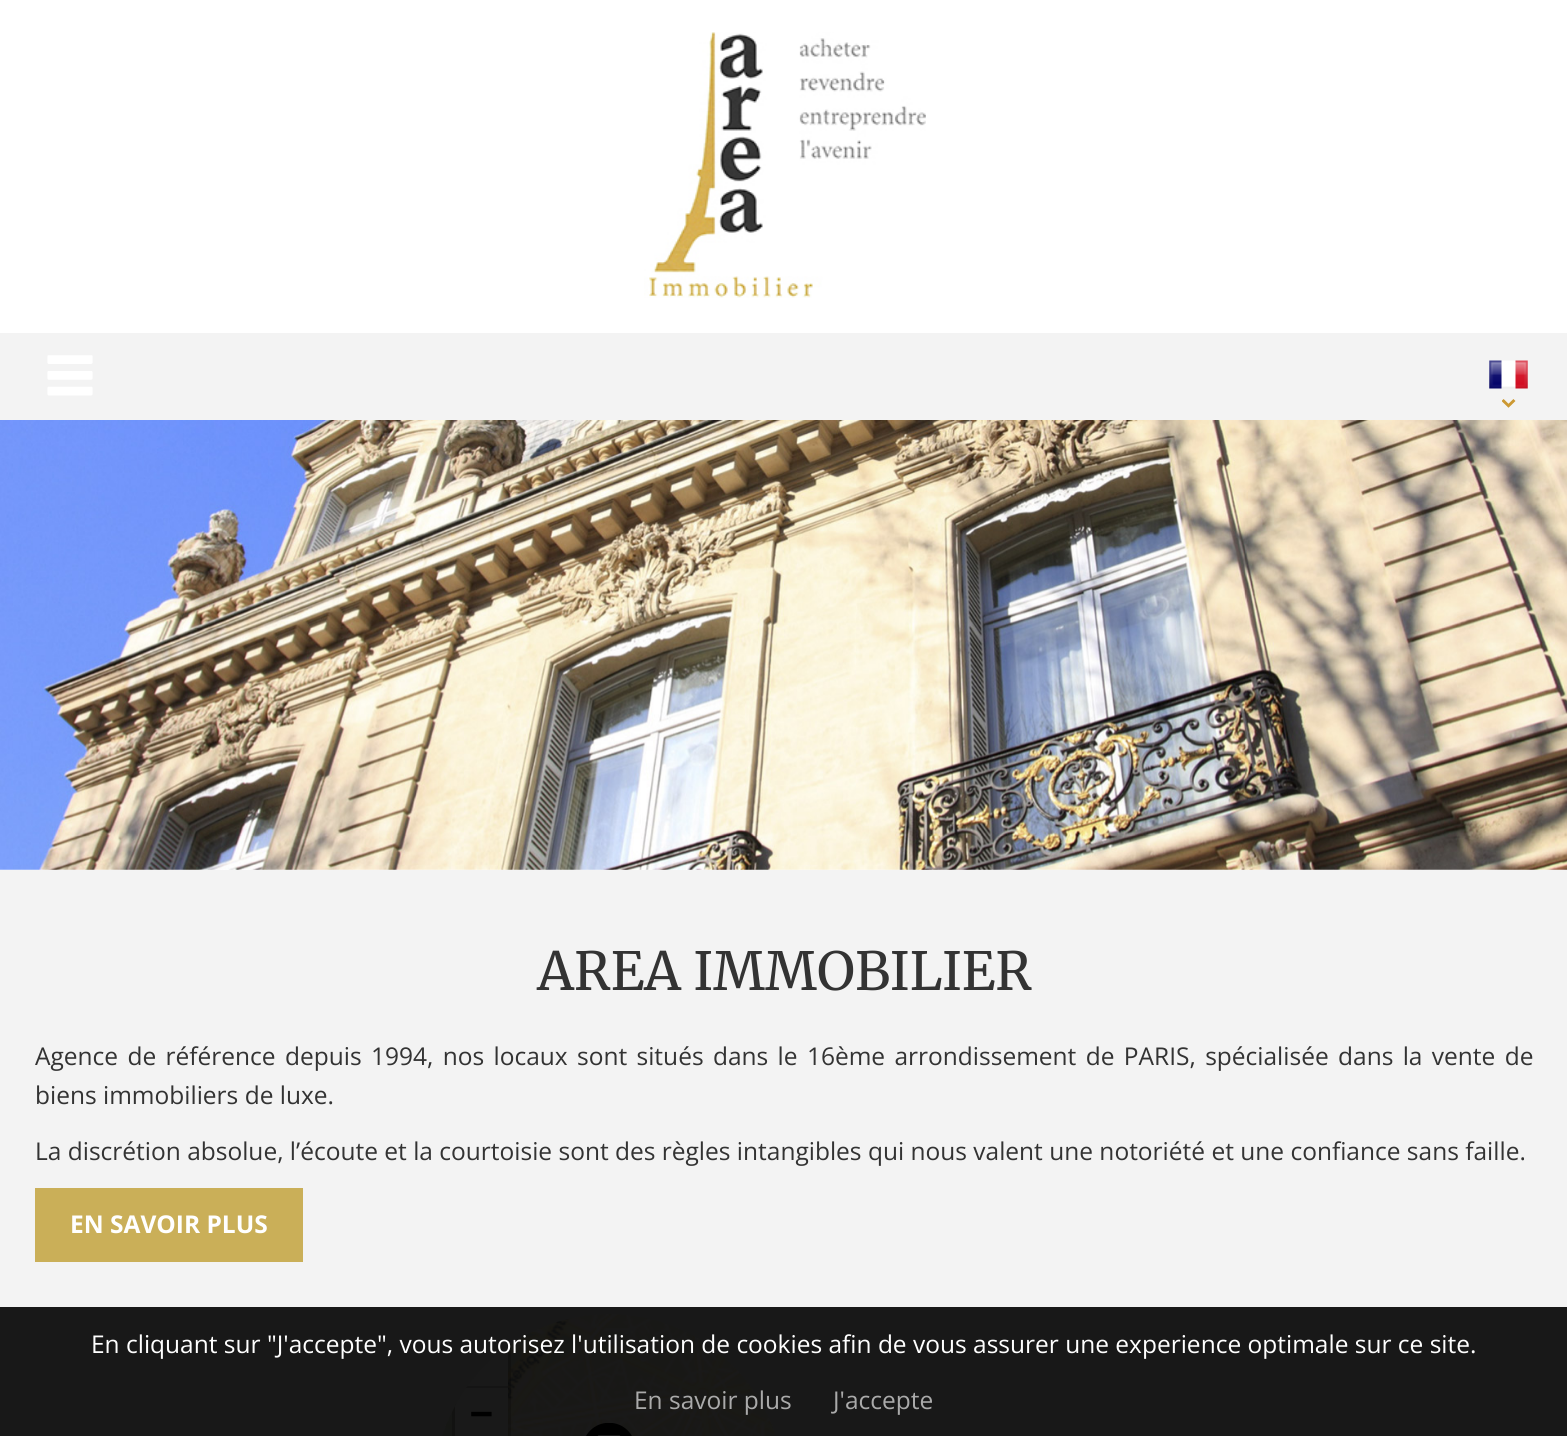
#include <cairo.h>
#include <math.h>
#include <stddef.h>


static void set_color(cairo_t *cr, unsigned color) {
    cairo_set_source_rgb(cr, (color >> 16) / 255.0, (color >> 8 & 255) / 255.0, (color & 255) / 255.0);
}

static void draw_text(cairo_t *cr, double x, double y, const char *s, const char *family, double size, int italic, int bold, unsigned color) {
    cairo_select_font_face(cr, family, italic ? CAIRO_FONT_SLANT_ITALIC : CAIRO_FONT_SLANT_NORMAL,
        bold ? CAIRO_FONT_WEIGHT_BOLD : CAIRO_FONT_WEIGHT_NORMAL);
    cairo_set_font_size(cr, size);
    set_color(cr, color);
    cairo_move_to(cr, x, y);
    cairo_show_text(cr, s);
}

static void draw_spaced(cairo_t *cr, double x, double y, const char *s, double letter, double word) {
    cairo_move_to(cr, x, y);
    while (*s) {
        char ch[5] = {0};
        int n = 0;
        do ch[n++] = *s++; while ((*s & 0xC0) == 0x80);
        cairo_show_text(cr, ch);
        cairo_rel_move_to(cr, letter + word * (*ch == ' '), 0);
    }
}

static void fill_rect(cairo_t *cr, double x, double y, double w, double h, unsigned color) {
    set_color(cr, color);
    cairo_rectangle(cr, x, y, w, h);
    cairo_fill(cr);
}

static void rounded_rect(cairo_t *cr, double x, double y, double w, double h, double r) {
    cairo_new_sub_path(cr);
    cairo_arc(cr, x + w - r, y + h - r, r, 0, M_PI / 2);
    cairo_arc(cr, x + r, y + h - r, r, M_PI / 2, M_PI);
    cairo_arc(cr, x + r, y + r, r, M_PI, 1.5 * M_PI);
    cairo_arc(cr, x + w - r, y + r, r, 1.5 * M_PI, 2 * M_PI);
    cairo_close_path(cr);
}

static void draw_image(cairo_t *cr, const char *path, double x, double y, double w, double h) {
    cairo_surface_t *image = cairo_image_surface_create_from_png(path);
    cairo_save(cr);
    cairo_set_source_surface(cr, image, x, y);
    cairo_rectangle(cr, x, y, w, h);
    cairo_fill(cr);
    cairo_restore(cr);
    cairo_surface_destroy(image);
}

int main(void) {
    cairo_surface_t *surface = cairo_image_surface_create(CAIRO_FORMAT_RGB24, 1567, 1436);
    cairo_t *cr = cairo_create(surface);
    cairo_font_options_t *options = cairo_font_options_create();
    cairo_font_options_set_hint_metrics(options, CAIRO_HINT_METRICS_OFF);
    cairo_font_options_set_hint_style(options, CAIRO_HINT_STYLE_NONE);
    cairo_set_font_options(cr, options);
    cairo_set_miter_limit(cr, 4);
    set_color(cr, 0xFFFFFF);
    cairo_paint(cr);
    draw_image(cr, "assets/img1.png", 644, 32, 282, 266);
    draw_image(cr, "assets/img2.png", 0, 420, 1567, 450);
    fill_rect(cr, 0, 333, 1567, 87, 0xF3F3F3);
    draw_image(cr, "assets/img3.png", 47, 355, 46, 41);
    draw_image(cr, "assets/img4.png", 1489, 360, 39, 29);
    draw_image(cr, "assets/img5.png", 1502, 399, 14, 9);
    fill_rect(cr, 0, 870, 1567, 437, 0xF3F3F3);
    fill_rect(cr, 0, 1307, 1567, 129, 0x181818);
    draw_text(cr, 537, 990, "AREA IMMOBILIER", "Merriweather", 52.5, 0, 0, 0x333333);
    cairo_select_font_face(cr, "Open Sans", CAIRO_FONT_SLANT_NORMAL, CAIRO_FONT_WEIGHT_NORMAL);
    cairo_set_font_size(cr, 24.5);
    draw_spaced(cr, 35, 1065, "Agence de référence depuis 1994, nos locaux sont situés dans le 16ème arrondissement de PARIS, spécialisée dans la vente de", 0, 3);
    draw_text(cr, 35, 1104, "biens immobiliers de luxe.", "Open Sans", 24.5, 0, 0, 0x333333);
    draw_text(cr, 35, 1160, "La discrétion absolue, l’écoute et la courtoisie sont des règles intangibles qui nous valent une notoriété et une confiance sans faille.", "Open Sans", 24.5, 0, 0, 0x333333);
    fill_rect(cr, 35, 1188, 268, 74, 0xCAAF58);
    draw_text(cr, 70, 1233, "EN SAVOIR PLUS", "Open Sans", 24.5, 0, 1, 0xFFFFFF);
    draw_image(cr, "assets/img6.png", 442, 1314, 160, 122);
    draw_image(cr, "assets/img7.png", 601, 1314, 175, 122);
    draw_image(cr, "assets/img8.png", 586, 1423, 46, 13);
    cairo_set_source_rgba(cr, 0, 0, 0, 0.2);
    cairo_new_path(cr);
    cairo_move_to(cr, 511, 1344);
    cairo_line_to(cr, 511, 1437);
    cairo_curve_to(cr, 511, 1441, 508, 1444, 504, 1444);
    cairo_line_to(cr, 459, 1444);
    cairo_curve_to(cr, 455, 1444, 452, 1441, 452, 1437);
    cairo_line_to(cr, 452, 1412);
    cairo_line_to(cr, 456, 1404);
    cairo_line_to(cr, 456, 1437);
    cairo_curve_to(cr, 456, 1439, 457, 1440, 459, 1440);
    cairo_line_to(cr, 504, 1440);
    cairo_curve_to(cr, 506, 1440, 507, 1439, 507, 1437);
    cairo_line_to(cr, 507, 1347);
    cairo_close_path(cr);
    cairo_fill(cr);
    cairo_save(cr);
    rounded_rect(cr, 434, 1314, 350, 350, 175);
    cairo_clip(cr);
    set_color(cr, 0x191919);
    cairo_new_path(cr);
    cairo_move_to(cr, 459, 1335);
    cairo_line_to(cr, 504, 1335);
    cairo_curve_to(cr, 506, 1335, 508, 1337, 508, 1339);
    cairo_line_to(cr, 508, 1388);
    cairo_line_to(cr, 455, 1388);
    cairo_line_to(cr, 455, 1339);
    cairo_curve_to(cr, 455, 1337, 457, 1335, 459, 1335);
    cairo_close_path(cr);
    cairo_fill(cr);
    fill_rect(cr, 466, 1386, 42, 2, 0x141414);
    set_color(cr, 0x191919);
    cairo_new_path(cr);
    cairo_move_to(cr, 455, 1388);
    cairo_line_to(cr, 508, 1388);
    cairo_line_to(cr, 508, 1436);
    cairo_curve_to(cr, 508, 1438, 506, 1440, 504, 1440);
    cairo_line_to(cr, 459, 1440);
    cairo_curve_to(cr, 457, 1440, 455, 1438, 455, 1436);
    cairo_close_path(cr);
    cairo_fill(cr);
    cairo_restore(cr);
    draw_text(cr, 470, 1426, "−", "DejaVu Sans Mono", 38, 0, 1, 0x000000);
    draw_text(cr, 91, 1353, "En cliquant sur \"J'accepte\", vous autorisez l'utilisation de cookies afin de vous assurer une experience optimale sur ce site.", "Open Sans", 24.5, 0, 0, 0xFFFFFF);
    draw_text(cr, 634, 1409, "En savoir plus", "Open Sans", 24.5, 0, 0, 0xAAAAAA);
    draw_text(cr, 833, 1409, "J'accepte", "Open Sans", 24.5, 0, 0, 0xAAAAAA);
    cairo_surface_write_to_png(surface, "output.png");
    cairo_font_options_destroy(options);
    cairo_destroy(cr);
    cairo_surface_destroy(surface);
    return 0;
}
